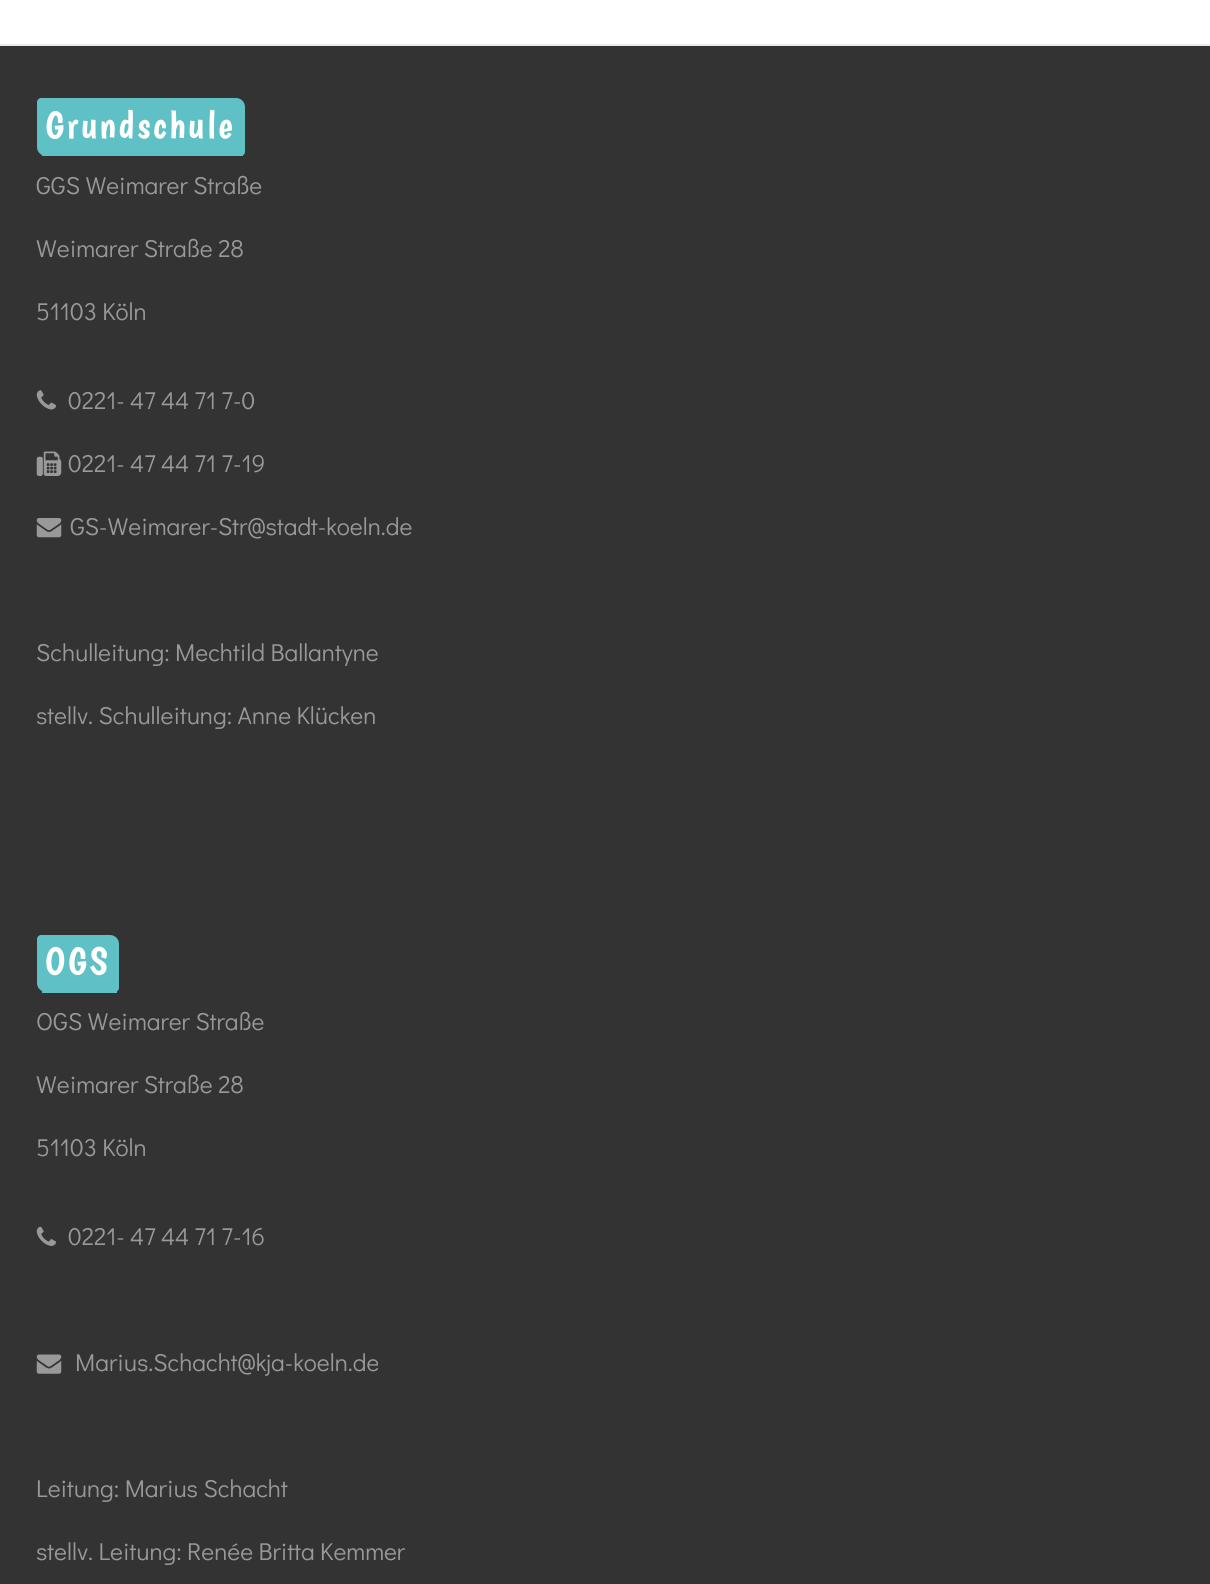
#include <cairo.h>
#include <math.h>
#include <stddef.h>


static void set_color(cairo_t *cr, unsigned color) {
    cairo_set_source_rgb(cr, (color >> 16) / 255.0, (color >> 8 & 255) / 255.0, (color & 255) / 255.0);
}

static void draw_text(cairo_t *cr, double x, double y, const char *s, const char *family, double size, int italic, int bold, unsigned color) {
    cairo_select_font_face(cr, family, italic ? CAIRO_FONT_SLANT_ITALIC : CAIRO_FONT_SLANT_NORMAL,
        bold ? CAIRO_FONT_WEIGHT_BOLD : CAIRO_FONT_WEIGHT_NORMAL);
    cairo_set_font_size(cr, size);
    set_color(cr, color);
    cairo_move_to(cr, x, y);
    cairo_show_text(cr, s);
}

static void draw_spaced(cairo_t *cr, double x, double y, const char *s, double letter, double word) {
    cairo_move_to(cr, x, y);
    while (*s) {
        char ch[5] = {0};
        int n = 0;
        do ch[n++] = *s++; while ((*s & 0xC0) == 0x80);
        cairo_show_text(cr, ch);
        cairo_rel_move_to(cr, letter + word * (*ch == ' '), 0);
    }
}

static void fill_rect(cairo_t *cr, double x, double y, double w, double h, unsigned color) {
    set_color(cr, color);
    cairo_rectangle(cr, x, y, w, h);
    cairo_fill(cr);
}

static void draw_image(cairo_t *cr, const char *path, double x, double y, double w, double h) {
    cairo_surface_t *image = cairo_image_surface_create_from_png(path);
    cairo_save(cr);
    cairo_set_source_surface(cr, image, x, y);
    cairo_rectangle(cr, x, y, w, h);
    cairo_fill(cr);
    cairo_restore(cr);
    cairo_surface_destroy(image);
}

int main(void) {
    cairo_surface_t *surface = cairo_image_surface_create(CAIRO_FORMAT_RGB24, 1210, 1584);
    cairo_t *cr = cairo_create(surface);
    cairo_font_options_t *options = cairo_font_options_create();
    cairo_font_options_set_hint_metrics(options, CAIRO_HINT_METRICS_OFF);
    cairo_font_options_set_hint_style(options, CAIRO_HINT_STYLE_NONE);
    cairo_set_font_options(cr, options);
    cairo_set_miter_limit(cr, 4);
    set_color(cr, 0xFFFFFF);
    cairo_paint(cr);
    fill_rect(cr, 0, 46, 1210, 1538, 0x333333);
    fill_rect(cr, 0, 44, 1210, 2, 0xEAEAEA);
    set_color(cr, 0x5FC0C6);
    cairo_new_path(cr);
    cairo_move_to(cr, 41, 98);
    cairo_line_to(cr, 236, 98);
    cairo_curve_to(cr, 241, 98, 245, 102, 245, 107);
    cairo_line_to(cr, 245, 152);
    cairo_curve_to(cr, 245, 154, 243, 156, 241, 156);
    cairo_line_to(cr, 46, 156);
    cairo_curve_to(cr, 41, 156, 37, 152, 37, 147);
    cairo_line_to(cr, 37, 102);
    cairo_curve_to(cr, 37, 100, 39, 98, 41, 98);
    cairo_close_path(cr);
    cairo_fill(cr);
    cairo_select_font_face(cr, "Boogaloo", CAIRO_FONT_SLANT_NORMAL, CAIRO_FONT_WEIGHT_NORMAL);
    cairo_set_font_size(cr, 38.5);
    set_color(cr, 0xFFFFFF);
    draw_spaced(cr, 45, 138, "Grundschule", 2.6, 0);
    fill_rect(cr, 42, 155, 201, 1, 0x5FC0C6);
    draw_text(cr, 36, 194, "GGS Weimarer Straße", "Didact Gothic", 24.5, 0, 0, 0x999999);
    draw_text(cr, 36, 257, "Weimarer Straße 28", "Didact Gothic", 24.5, 0, 0, 0x999999);
    draw_text(cr, 36, 320, "51103 Köln", "Didact Gothic", 24.5, 0, 0, 0x999999);
    draw_image(cr, "assets/img1.png", 36, 390, 20, 20);
    draw_text(cr, 68, 409, "0221- 47 44 71 7-0", "Didact Gothic", 24.5, 0, 0, 0x999999);
    draw_image(cr, "assets/img2.png", 36, 451, 26, 25);
    draw_text(cr, 68, 472, "0221- 47 44 71 7-19", "Didact Gothic", 24.5, 0, 0, 0x999999);
    draw_image(cr, "assets/img3.png", 36, 518, 26, 20);
    draw_text(cr, 70, 535, "GS-Weimarer-Str@stadt-koeln.de", "Didact Gothic", 24.5, 0, 0, 0x999999);
    draw_text(cr, 36, 661, "Schulleitung: Mechtild Ballantyne", "Didact Gothic", 24.5, 0, 0, 0x999999);
    draw_text(cr, 36, 724, "stellv. Schulleitung: Anne Klücken", "Didact Gothic", 24.5, 0, 0, 0x999999);
    set_color(cr, 0x5FC0C6);
    cairo_new_path(cr);
    cairo_move_to(cr, 41, 935);
    cairo_line_to(cr, 110, 935);
    cairo_curve_to(cr, 115, 935, 119, 939, 119, 944);
    cairo_line_to(cr, 119, 988);
    cairo_curve_to(cr, 119, 990, 117, 992, 115, 992);
    cairo_line_to(cr, 46, 992);
    cairo_curve_to(cr, 41, 992, 37, 988, 37, 983);
    cairo_line_to(cr, 37, 939);
    cairo_curve_to(cr, 37, 937, 39, 935, 41, 935);
    cairo_close_path(cr);
    cairo_fill(cr);
    cairo_select_font_face(cr, "Boogaloo", CAIRO_FONT_SLANT_NORMAL, CAIRO_FONT_WEIGHT_NORMAL);
    cairo_set_font_size(cr, 38.5);
    set_color(cr, 0xFFFFFF);
    draw_spaced(cr, 45, 974, "OGS", 2.6, 0);
    fill_rect(cr, 42, 991, 75, 2, 0x5FC0C6);
    draw_text(cr, 36, 1030, "OGS Weimarer Straße", "Didact Gothic", 24.5, 0, 0, 0x999999);
    draw_text(cr, 36, 1093, "Weimarer Straße 28", "Didact Gothic", 24.5, 0, 0, 0x999999);
    draw_text(cr, 36, 1156, "51103 Köln", "Didact Gothic", 24.5, 0, 0, 0x999999);
    draw_image(cr, "assets/img4.png", 36, 1226, 20, 20);
    draw_text(cr, 68, 1245, "0221- 47 44 71 7-16", "Didact Gothic", 24.5, 0, 0, 0x999999);
    draw_image(cr, "assets/img5.png", 36, 1354, 26, 20);
    draw_text(cr, 75, 1371, "Marius.Schacht@kja-koeln.de", "Didact Gothic", 24.5, 0, 0, 0x999999);
    draw_text(cr, 36, 1497, "Leitung: Marius Schacht", "Didact Gothic", 24.5, 0, 0, 0x999999);
    draw_text(cr, 36, 1560, "stellv. Leitung: Renée Britta Kemmer", "Didact Gothic", 24.5, 0, 0, 0x999999);
    cairo_surface_write_to_png(surface, "output.png");
    cairo_font_options_destroy(options);
    cairo_destroy(cr);
    cairo_surface_destroy(surface);
    return 0;
}
